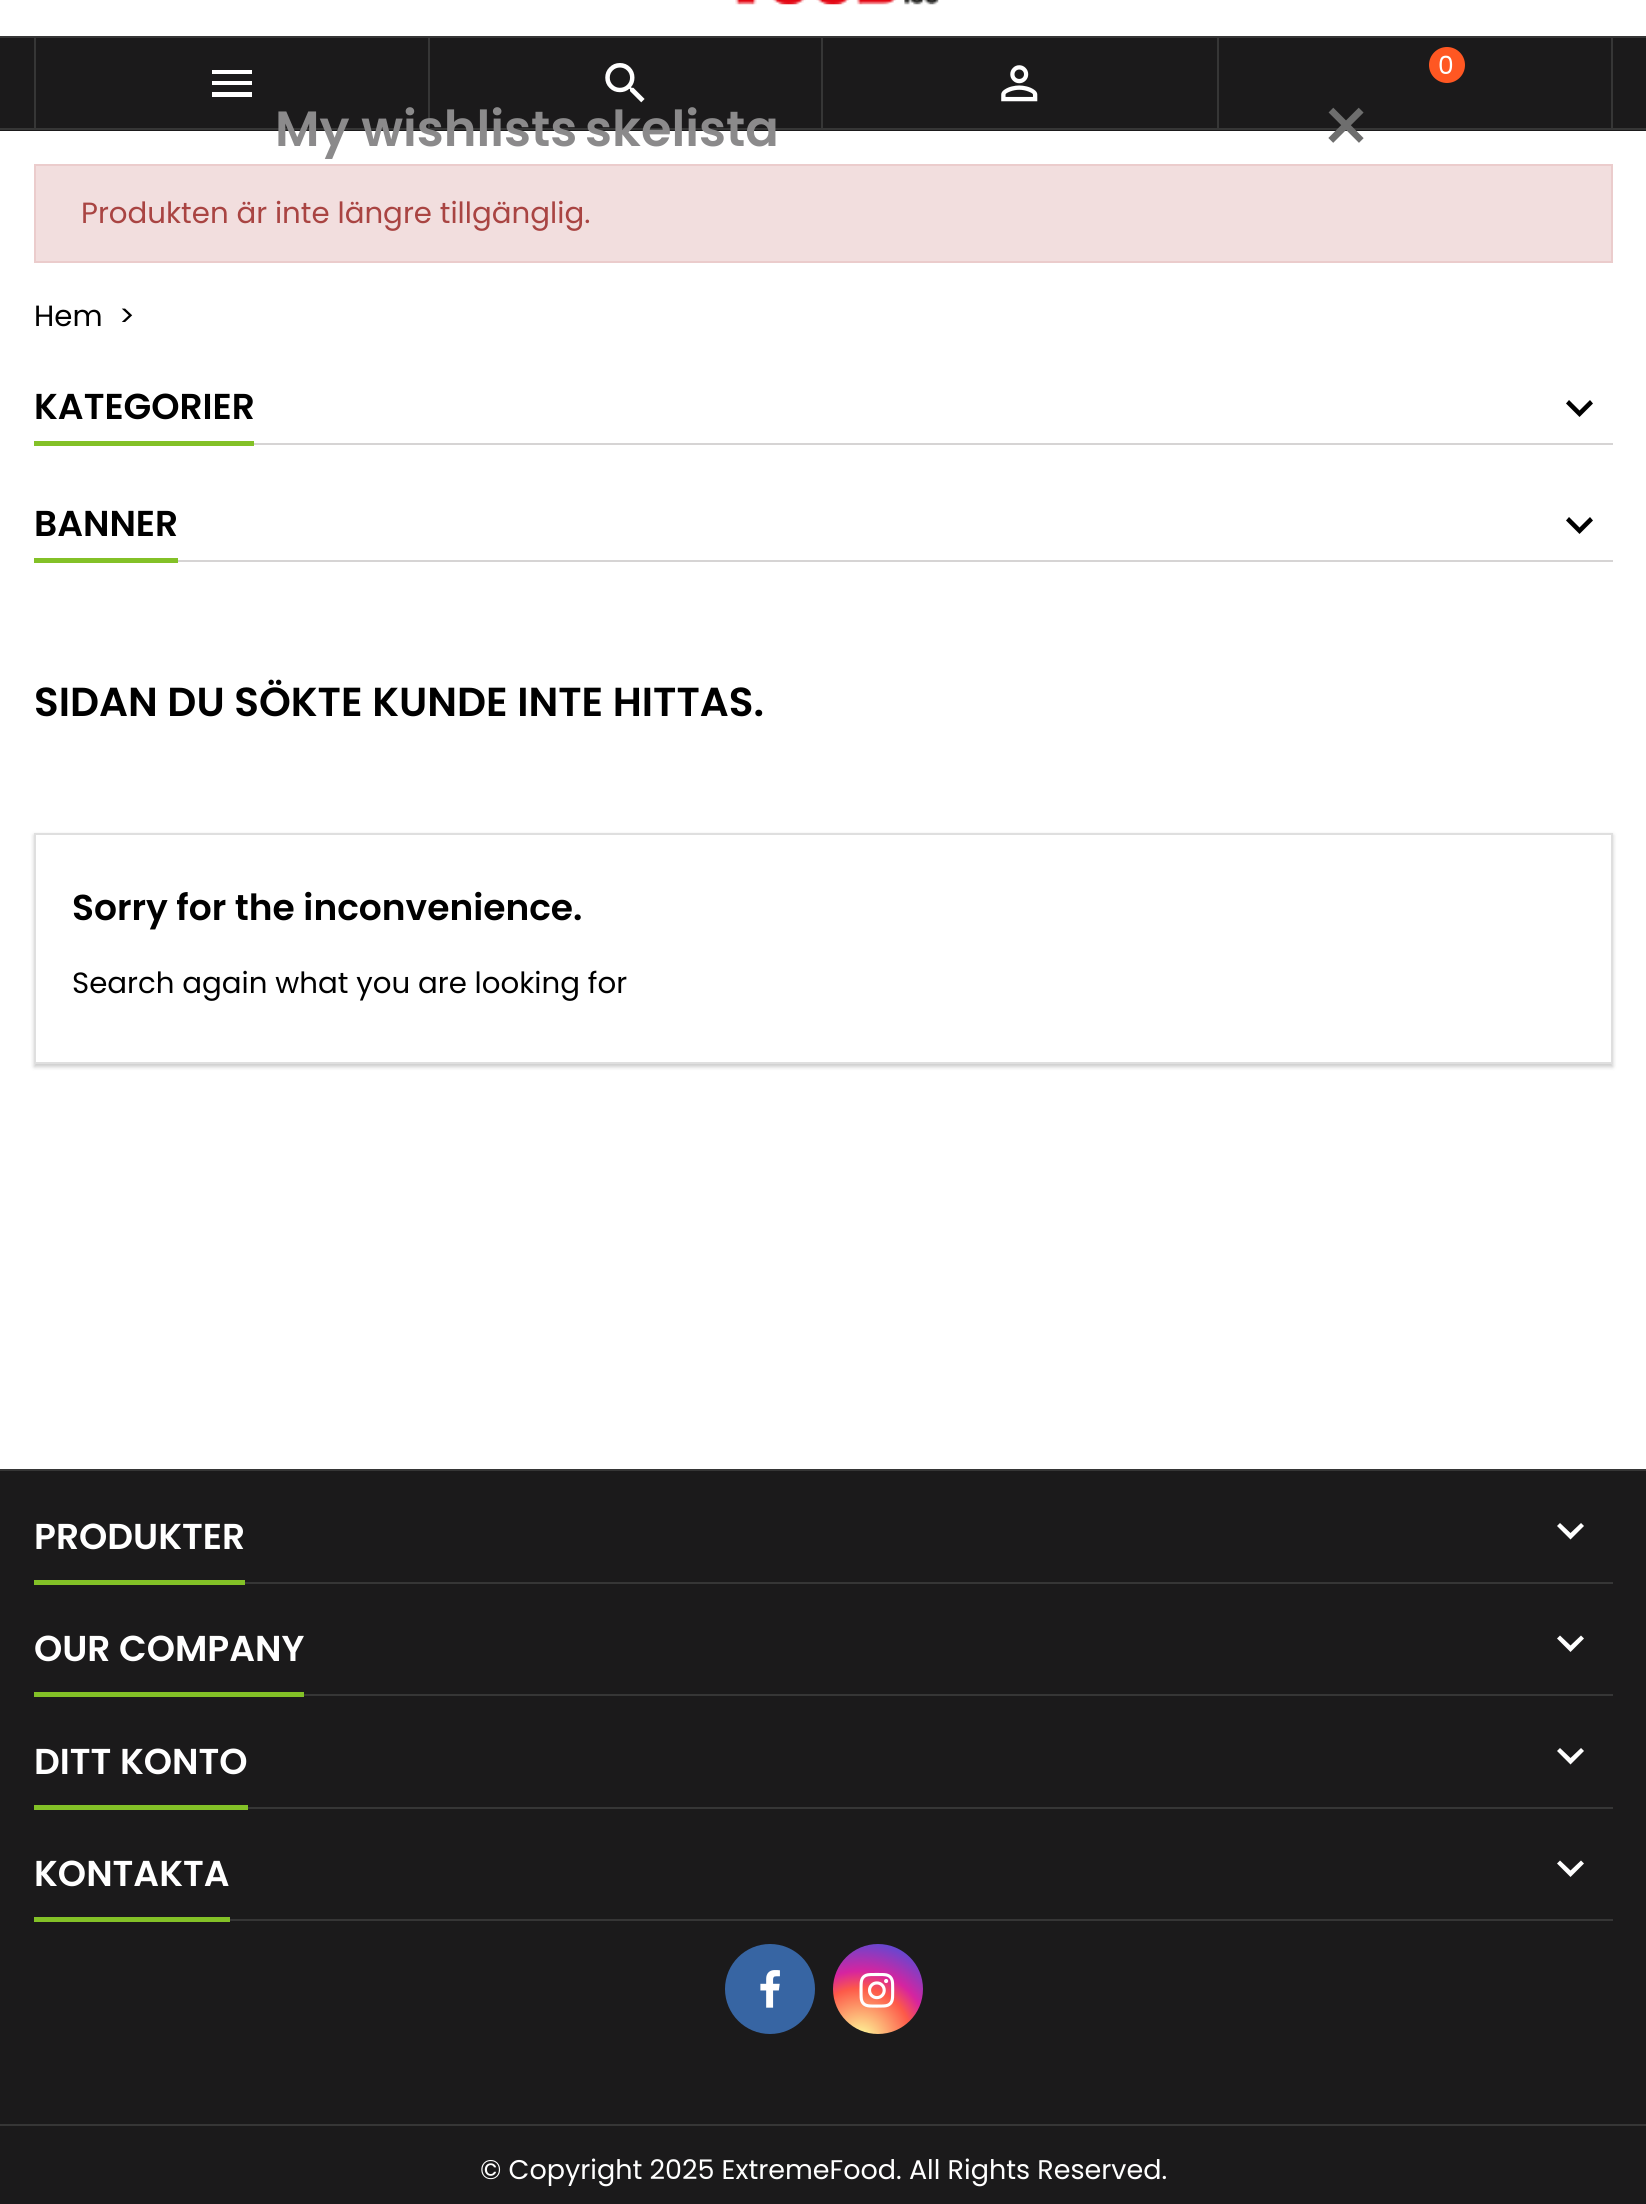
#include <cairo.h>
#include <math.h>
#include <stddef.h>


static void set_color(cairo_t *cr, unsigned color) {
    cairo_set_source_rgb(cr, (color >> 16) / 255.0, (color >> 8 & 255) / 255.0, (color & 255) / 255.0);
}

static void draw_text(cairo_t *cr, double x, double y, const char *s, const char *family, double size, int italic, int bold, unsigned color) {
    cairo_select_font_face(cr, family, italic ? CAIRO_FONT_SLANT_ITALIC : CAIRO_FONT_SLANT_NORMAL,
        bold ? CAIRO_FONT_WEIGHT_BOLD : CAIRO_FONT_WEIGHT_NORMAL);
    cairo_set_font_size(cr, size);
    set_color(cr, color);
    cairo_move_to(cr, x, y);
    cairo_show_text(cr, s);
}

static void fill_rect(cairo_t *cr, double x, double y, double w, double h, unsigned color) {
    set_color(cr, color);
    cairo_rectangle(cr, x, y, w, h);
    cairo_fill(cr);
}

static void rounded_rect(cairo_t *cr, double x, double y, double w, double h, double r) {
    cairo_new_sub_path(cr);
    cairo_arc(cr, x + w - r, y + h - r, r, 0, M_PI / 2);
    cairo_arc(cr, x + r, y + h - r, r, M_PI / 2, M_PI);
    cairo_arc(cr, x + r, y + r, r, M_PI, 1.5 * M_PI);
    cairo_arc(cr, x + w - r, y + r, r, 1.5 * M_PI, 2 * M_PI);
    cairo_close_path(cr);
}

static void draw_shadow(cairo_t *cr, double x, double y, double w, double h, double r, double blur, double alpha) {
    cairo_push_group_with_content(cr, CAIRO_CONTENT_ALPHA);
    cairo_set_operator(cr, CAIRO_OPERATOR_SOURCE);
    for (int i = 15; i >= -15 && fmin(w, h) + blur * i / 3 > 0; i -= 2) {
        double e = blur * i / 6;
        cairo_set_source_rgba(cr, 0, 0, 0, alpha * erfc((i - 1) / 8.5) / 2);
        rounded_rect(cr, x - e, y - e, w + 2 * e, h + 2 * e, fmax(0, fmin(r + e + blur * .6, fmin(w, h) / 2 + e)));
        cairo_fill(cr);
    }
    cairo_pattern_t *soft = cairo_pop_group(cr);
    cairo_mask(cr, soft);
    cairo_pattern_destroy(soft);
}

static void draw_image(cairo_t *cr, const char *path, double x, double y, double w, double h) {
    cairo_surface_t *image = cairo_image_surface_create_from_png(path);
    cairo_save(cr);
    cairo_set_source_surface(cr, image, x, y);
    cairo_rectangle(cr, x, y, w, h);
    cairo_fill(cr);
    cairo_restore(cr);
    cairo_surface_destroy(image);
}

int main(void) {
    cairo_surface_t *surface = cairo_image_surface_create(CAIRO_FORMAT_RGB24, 1646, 2204);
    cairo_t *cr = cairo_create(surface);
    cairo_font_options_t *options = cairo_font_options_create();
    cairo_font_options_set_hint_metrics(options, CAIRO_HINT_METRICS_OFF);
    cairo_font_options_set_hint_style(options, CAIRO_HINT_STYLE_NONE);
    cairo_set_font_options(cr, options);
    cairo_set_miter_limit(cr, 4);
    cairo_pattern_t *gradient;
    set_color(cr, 0xFFFFFF);
    cairo_paint(cr);
    draw_image(cr, "assets/img1.png", 735, 0, 204, 5);
    fill_rect(cr, 0, 38, 1646, 93, 0x1B1A1B);
    fill_rect(cr, 0, 36, 1646, 2, 0x363636);
    fill_rect(cr, 0, 128, 1646, 2, 0x363636);
    fill_rect(cr, 428, 38, 2, 90, 0x363636);
    fill_rect(cr, 34, 38, 2, 90, 0x363636);
    set_color(cr, 0xFFFFFF);
    cairo_new_path(cr);
    cairo_move_to(cr, 212, 70);
    cairo_line_to(cr, 252, 70);
    cairo_line_to(cr, 252, 74);
    cairo_line_to(cr, 212, 74);
    cairo_close_path(cr);
    cairo_move_to(cr, 212, 85);
    cairo_line_to(cr, 212, 81);
    cairo_line_to(cr, 252, 81);
    cairo_line_to(cr, 252, 85);
    cairo_close_path(cr);
    cairo_move_to(cr, 212, 97);
    cairo_line_to(cr, 212, 92);
    cairo_line_to(cr, 252, 92);
    cairo_line_to(cr, 252, 97);
    cairo_close_path(cr);
    cairo_fill(cr);
    fill_rect(cr, 821, 38, 2, 90, 0x363636);
    draw_image(cr, "assets/img2.png", 605, 63, 40, 40);
    fill_rect(cr, 1217, 38, 2, 90, 0x363636);
    draw_image(cr, "assets/img3.png", 1001, 65, 37, 37);
    fill_rect(cr, 1611, 38, 2, 90, 0x363636);
    set_color(cr, 0xFF5722);
    cairo_arc(cr, 1447, 65, 18, 0, 2 * M_PI);
    cairo_fill(cr);
    draw_text(cr, 1438, 74, "0", "Poppins", 25, 0, 0, 0xFFFFFF);
    fill_rect(cr, 0, 1471, 1646, 653, 0x1B1A1B);
    fill_rect(cr, 0, 1469, 1646, 2, 0x363636);
    draw_text(cr, 275, 146, "My wishlists", "Poppins SemiBold", 49.5, 0, 0, 0x8B8A8B);
    draw_text(cr, 1320, 155, "×", "Poppins", 81, 0, 0, 0x6E6E6E);
    draw_text(cr, 585, 146, "skelista", "Poppins SemiBold", 49.5, 0, 0, 0x8B8A8B);
    fill_rect(cr, 245, 1582, 1368, 2, 0x363636);
    fill_rect(cr, 34, 1580, 211, 5, 0x83C127);
    draw_text(cr, 34, 1549, "PRODUKTER", "Poppins SemiBold", 36, 0, 0, 0xFFFFFF);
    cairo_new_path(cr);
    cairo_move_to(cr, 1560, 1523);
    cairo_line_to(cr, 1570.5, 1533);
    cairo_line_to(cr, 1581, 1523);
    cairo_line_to(cr, 1584, 1526);
    cairo_line_to(cr, 1570.5, 1539.5);
    cairo_line_to(cr, 1557, 1526);
    cairo_close_path(cr);
    cairo_fill(cr);
    fill_rect(cr, 304, 1694, 1309, 2, 0x363636);
    fill_rect(cr, 34, 1692, 270, 5, 0x83C127);
    draw_text(cr, 34, 1661, "OUR COMPANY", "Poppins SemiBold", 36, 0, 0, 0xFFFFFF);
    cairo_new_path(cr);
    cairo_move_to(cr, 1560, 1635.5);
    cairo_line_to(cr, 1570.5, 1645.5);
    cairo_line_to(cr, 1581, 1635.5);
    cairo_line_to(cr, 1584, 1638.5);
    cairo_line_to(cr, 1570.5, 1652);
    cairo_line_to(cr, 1557, 1638.5);
    cairo_close_path(cr);
    cairo_fill(cr);
    fill_rect(cr, 248, 1807, 1365, 2, 0x363636);
    fill_rect(cr, 34, 1805, 214, 5, 0x83C127);
    draw_text(cr, 34, 1774, "DITT KONTO", "Poppins SemiBold", 36, 0, 0, 0xFFFFFF);
    cairo_new_path(cr);
    cairo_move_to(cr, 1560, 1748);
    cairo_line_to(cr, 1570.5, 1758);
    cairo_line_to(cr, 1581, 1748);
    cairo_line_to(cr, 1584, 1751);
    cairo_line_to(cr, 1570.5, 1764.5);
    cairo_line_to(cr, 1557, 1751);
    cairo_close_path(cr);
    cairo_fill(cr);
    fill_rect(cr, 230, 1919, 1383, 2, 0x363636);
    fill_rect(cr, 34, 1917, 196, 5, 0x83C127);
    draw_text(cr, 34, 1886, "KONTAKTA", "Poppins SemiBold", 36, 0, 0, 0xFFFFFF);
    cairo_new_path(cr);
    cairo_move_to(cr, 1560, 1860.5);
    cairo_line_to(cr, 1570.5, 1870.5);
    cairo_line_to(cr, 1581, 1860.5);
    cairo_line_to(cr, 1584, 1863.5);
    cairo_line_to(cr, 1570.5, 1877);
    cairo_line_to(cr, 1557, 1863.5);
    cairo_close_path(cr);
    cairo_fill(cr);
    set_color(cr, 0x3765A3);
    cairo_arc(cr, 770, 1989, 45, 0, 2 * M_PI);
    cairo_fill(cr);
    draw_image(cr, "assets/img4.png", 760, 1970, 20, 38);
    gradient = cairo_pattern_create_radial(860, 2040, 0, 860, 2040, 115);
    cairo_pattern_add_color_stop_rgba(gradient, 0, 0.992, 0.957, 0.592, 1);
    cairo_pattern_add_color_stop_rgba(gradient, 0.05, 0.992, 0.957, 0.592, 1);
    cairo_pattern_add_color_stop_rgba(gradient, 0.45, 0.992, 0.349, 0.286, 1);
    cairo_pattern_add_color_stop_rgba(gradient, 0.6, 0.839, 0.141, 0.624, 1);
    cairo_pattern_add_color_stop_rgba(gradient, 1, 0.157, 0.353, 0.922, 1);
    cairo_set_source(cr, gradient);
    cairo_pattern_destroy(gradient);
    cairo_arc(cr, 878, 1989, 45, 0, 2 * M_PI);
    cairo_fill(cr);
    draw_image(cr, "assets/img5.png", 859, 1972, 36, 36);
    fill_rect(cr, 0, 2126, 1646, 78, 0x1B1A1B);
    fill_rect(cr, 0, 2124, 1646, 2, 0x363636);
    draw_text(cr, 480, 2179, "© Copyright 2025 ExtremeFood. All Rights Reserved.", "Poppins", 27, 0, 0, 0xFFFFFF);
    set_color(cr, 0xF2DEDE);
    cairo_rectangle(cr, 35, 165, 1577, 97);
    cairo_fill_preserve(cr);
    set_color(cr, 0xEBCCCC);
    cairo_stroke(cr);
    draw_text(cr, 81, 223, "Produkten är inte längre tillgänglig.", "Poppins", 29.25, 0, 0, 0xA94442);
    draw_text(cr, 34, 326, "Hem", "Poppins", 29.25, 0, 0, 0x000000);
    draw_text(cr, 119, 326, ">", "Poppins", 29.25, 0, 0, 0x000000);
    fill_rect(cr, 254, 443, 1359, 2, 0xD6D4D4);
    fill_rect(cr, 34, 441, 220, 5, 0x83C127);
    draw_text(cr, 34, 419, "KATEGORIER", "Poppins SemiBold", 36, 0, 0, 0x000000);
    cairo_new_path(cr);
    cairo_move_to(cr, 1569, 400);
    cairo_line_to(cr, 1579.5, 410.5);
    cairo_line_to(cr, 1590, 400);
    cairo_line_to(cr, 1593, 403.5);
    cairo_line_to(cr, 1579.5, 417);
    cairo_line_to(cr, 1566, 403.5);
    cairo_close_path(cr);
    cairo_fill(cr);
    fill_rect(cr, 178, 560, 1435, 2, 0xD6D4D4);
    fill_rect(cr, 34, 558, 144, 5, 0x83C127);
    draw_text(cr, 34, 536, "BANNER", "Poppins SemiBold", 36, 0, 0, 0x000000);
    cairo_new_path(cr);
    cairo_move_to(cr, 1569, 517);
    cairo_line_to(cr, 1579.5, 527.5);
    cairo_line_to(cr, 1590, 517);
    cairo_line_to(cr, 1593, 520.5);
    cairo_line_to(cr, 1579.5, 534);
    cairo_line_to(cr, 1566, 520.5);
    cairo_close_path(cr);
    cairo_fill(cr);
    draw_text(cr, 34, 716, "SIDAN DU SÖKTE KUNDE INTE HITTAS.", "Poppins SemiBold", 40.5, 0, 0, 0x000000);
    cairo_save(cr);
    cairo_set_fill_rule(cr, CAIRO_FILL_RULE_EVEN_ODD);
    cairo_new_path(cr);
    cairo_move_to(cr, 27, 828);
    cairo_line_to(cr, 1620, 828);
    cairo_line_to(cr, 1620, 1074);
    cairo_line_to(cr, 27, 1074);
    cairo_close_path(cr);
    cairo_move_to(cr, 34, 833);
    cairo_line_to(cr, 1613, 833);
    cairo_line_to(cr, 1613, 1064);
    cairo_line_to(cr, 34, 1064);
    cairo_close_path(cr);
    cairo_clip(cr);
    set_color(cr, 0x000000);
    draw_shadow(cr, 34, 835, 1579, 232, 0, 2, 0.2);
    cairo_restore(cr);
    cairo_rectangle(cr, 35, 834, 1577, 229);
    set_color(cr, 0xDFDFDF);
    cairo_stroke(cr);
    draw_text(cr, 72, 920, "Sorry for the inconvenience.", "Poppins SemiBold", 36, 0, 0, 0x000000);
    draw_text(cr, 72, 993, "Search again what you are looking for", "Poppins", 29.25, 0, 0, 0x000000);
    cairo_surface_write_to_png(surface, "output.png");
    cairo_font_options_destroy(options);
    cairo_destroy(cr);
    cairo_surface_destroy(surface);
    return 0;
}
